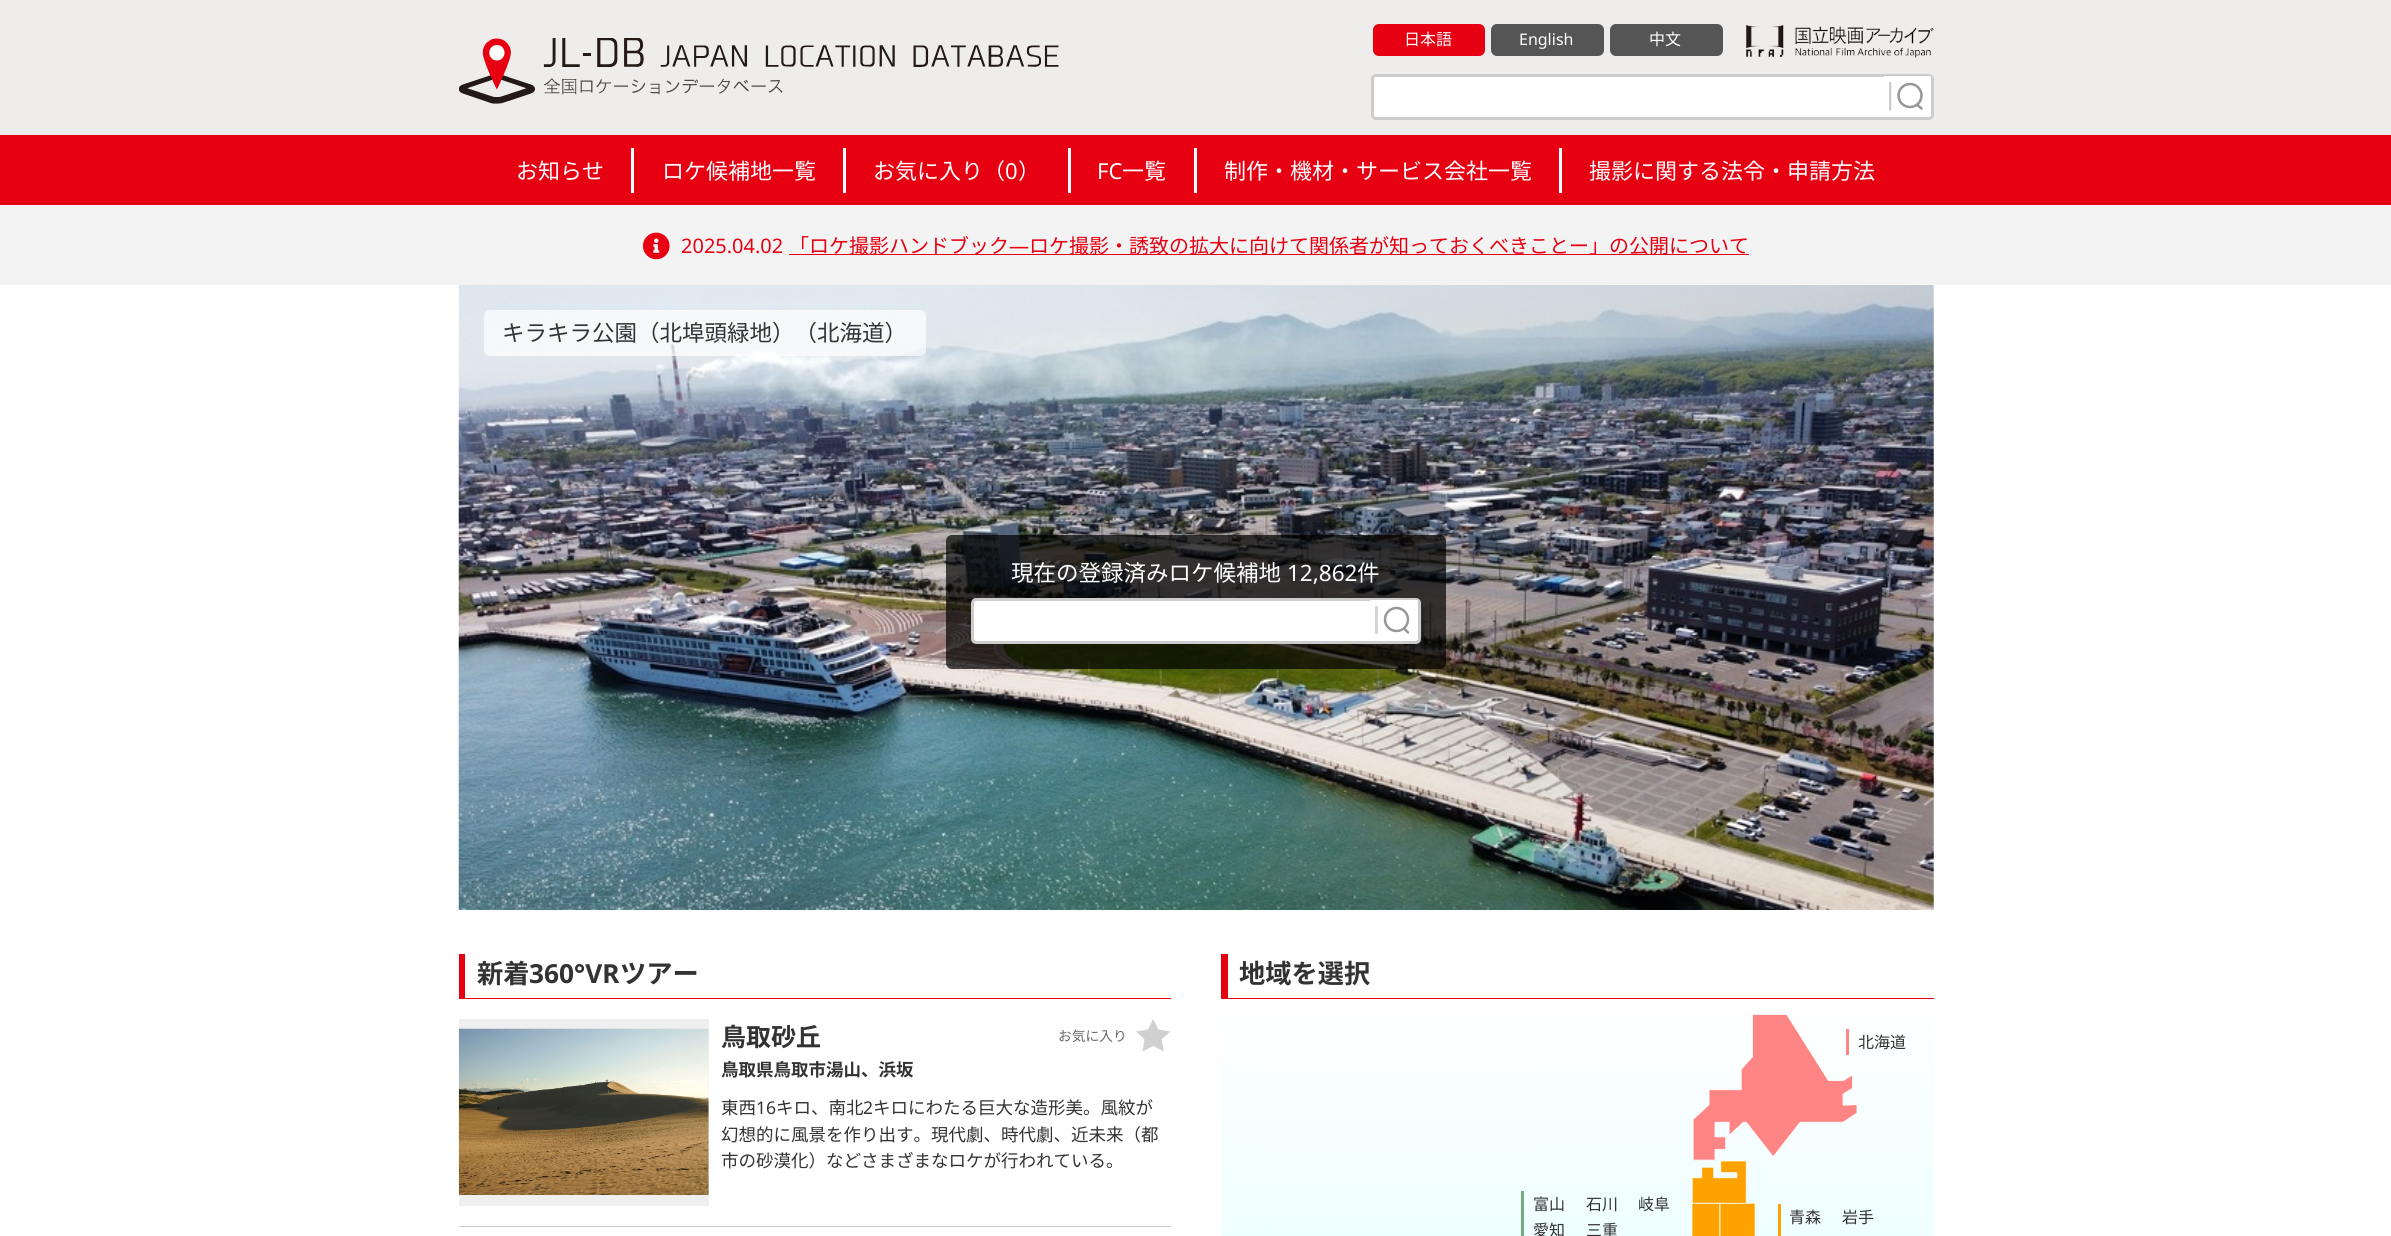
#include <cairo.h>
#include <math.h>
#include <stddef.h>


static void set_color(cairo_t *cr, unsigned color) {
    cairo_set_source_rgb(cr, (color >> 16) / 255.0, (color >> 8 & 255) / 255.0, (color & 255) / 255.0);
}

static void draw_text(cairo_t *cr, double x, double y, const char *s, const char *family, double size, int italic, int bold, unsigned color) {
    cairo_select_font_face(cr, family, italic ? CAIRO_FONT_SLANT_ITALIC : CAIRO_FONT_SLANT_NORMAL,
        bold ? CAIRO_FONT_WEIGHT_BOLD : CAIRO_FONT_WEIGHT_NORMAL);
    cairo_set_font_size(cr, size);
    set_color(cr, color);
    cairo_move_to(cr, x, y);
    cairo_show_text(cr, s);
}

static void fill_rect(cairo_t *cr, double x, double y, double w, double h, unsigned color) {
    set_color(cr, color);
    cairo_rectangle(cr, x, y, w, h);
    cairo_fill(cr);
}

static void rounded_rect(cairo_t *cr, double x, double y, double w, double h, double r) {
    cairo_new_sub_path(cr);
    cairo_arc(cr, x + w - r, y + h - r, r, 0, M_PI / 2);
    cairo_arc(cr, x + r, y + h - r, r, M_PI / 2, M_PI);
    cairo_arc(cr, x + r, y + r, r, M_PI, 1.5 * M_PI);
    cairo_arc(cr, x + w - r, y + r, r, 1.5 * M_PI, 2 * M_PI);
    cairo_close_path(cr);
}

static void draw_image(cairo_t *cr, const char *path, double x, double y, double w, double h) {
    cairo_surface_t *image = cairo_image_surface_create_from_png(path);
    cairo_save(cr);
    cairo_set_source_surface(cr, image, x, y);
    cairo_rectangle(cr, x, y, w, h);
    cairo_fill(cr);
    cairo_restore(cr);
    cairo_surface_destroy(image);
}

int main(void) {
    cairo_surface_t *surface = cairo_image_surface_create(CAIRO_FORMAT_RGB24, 2391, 1236);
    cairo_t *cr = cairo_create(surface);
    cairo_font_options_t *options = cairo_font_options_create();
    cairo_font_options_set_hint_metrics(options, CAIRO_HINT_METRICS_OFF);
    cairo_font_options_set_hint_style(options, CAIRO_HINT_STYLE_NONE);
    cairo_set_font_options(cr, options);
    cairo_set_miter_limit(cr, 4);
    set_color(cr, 0xFFFFFF);
    cairo_paint(cr);
    fill_rect(cr, 0, 0, 2391, 135, 0xEEEDEB);
    draw_image(cr, "assets/img1.png", 459, 38, 600, 66);
    set_color(cr, 0xE60012);
    rounded_rect(cr, 1373, 24, 112, 32, 6);
    cairo_fill(cr);
    draw_text(cr, 1404, 45, "日本語", "Noto Sans CJK JP", 16, 0, 0, 0xFFFFFF);
    set_color(cr, 0x555555);
    rounded_rect(cr, 1491, 24, 113, 32, 6);
    cairo_fill(cr);
    draw_text(cr, 1519, 45, "English", "Noto Sans", 16, 0, 0, 0xFFFFFF);
    set_color(cr, 0x555555);
    rounded_rect(cr, 1610, 24, 113, 32, 6);
    cairo_fill(cr);
    draw_text(cr, 1649, 45, "中文", "Noto Sans CJK JP", 16, 0, 0, 0xFFFFFF);
    draw_image(cr, "assets/img2.png", 1746, 25, 188, 33);
    rounded_rect(cr, 1372.5, 75.5, 560, 43, 3.5);
    cairo_fill_preserve(cr);
    set_color(cr, 0xCCCCCC);
    cairo_set_line_width(cr, 3);
    cairo_stroke(cr);
    fill_rect(cr, 1884, 76, 47, 40, 0xFFFFFF);
    cairo_save(cr);
    cairo_rectangle(cr, 1889, 81, 37, 30);
    cairo_clip(cr);
    cairo_new_path(cr);
    cairo_move_to(cr, 1890, 82);
    cairo_line_to(cr, 1890, 110.5);
    set_color(cr, 0xCCCCCC);
    cairo_set_line_width(cr, 2.5);
    cairo_stroke(cr);
    cairo_restore(cr);
    cairo_arc(cr, 1910, 95.5, 11.5, 0, 2 * M_PI);
    set_color(cr, 0x979797);
    cairo_set_line_width(cr, 2.5);
    cairo_stroke(cr);
    cairo_new_path(cr);
    cairo_move_to(cr, 1917.5, 105);
    cairo_line_to(cr, 1921.5, 108.5);
    cairo_set_line_cap(cr, CAIRO_LINE_CAP_ROUND);
    cairo_stroke(cr);
    fill_rect(cr, 0, 135, 2391, 70, 0xE60012);
    fill_rect(cr, 631, 148, 3, 45, 0xFFFFFF);
    draw_text(cr, 516, 179, "お知らせ", "Noto Sans CJK JP", 22, 0, 0, 0xFFFFFF);
    fill_rect(cr, 843, 148, 3, 45, 0xFFFFFF);
    draw_text(cr, 662, 179, "ロケ候補地一覧", "Noto Sans CJK JP", 22, 0, 0, 0xFFFFFF);
    fill_rect(cr, 1068, 148, 3, 45, 0xFFFFFF);
    draw_text(cr, 873, 179, "お気に入り（", "Noto Sans CJK JP", 22, 0, 0, 0xFFFFFF);
    draw_text(cr, 1005, 179, "0", "Noto Sans", 22, 0, 0, 0xFFFFFF);
    draw_text(cr, 1018, 179, "）", "Noto Sans CJK JP", 22, 0, 0, 0xFFFFFF);
    fill_rect(cr, 1194, 148, 3, 45, 0xFFFFFF);
    draw_text(cr, 1097, 179, "FC", "Noto Sans", 22, 0, 0, 0xFFFFFF);
    draw_text(cr, 1122, 179, "一覧", "Noto Sans CJK JP", 22, 0, 0, 0xFFFFFF);
    fill_rect(cr, 1559, 148, 3, 45, 0xFFFFFF);
    draw_text(cr, 1224, 179, "制作・機材・サービス会社一覧", "Noto Sans CJK JP", 22, 0, 0, 0xFFFFFF);
    draw_text(cr, 1589, 179, "撮影に関する法令・申請方法", "Noto Sans CJK JP", 22, 0, 0, 0xFFFFFF);
    fill_rect(cr, 0, 205, 2391, 80, 0xF3F3F3);
    draw_image(cr, "assets/img3.png", 642, 232, 28, 28);
    draw_text(cr, 681, 253, "2025.04.02", "Noto Sans", 20, 0, 0, 0xE60012);
    fill_rect(cr, 789, 254, 960, 1, 0xE60012);
    draw_text(cr, 789, 253, "「ロケ撮影ハンドブック", "Noto Sans CJK JP", 20, 0, 0, 0xE60012);
    draw_text(cr, 1009, 253, "―", "Noto Sans", 20, 0, 0, 0xE60012);
    draw_text(cr, 1029, 253, "ロケ撮影・誘致の拡大に向けて関係者が知っておくべきことー」の公開について", "Noto Sans CJK JP", 20, 0, 0, 0xE60012);
    draw_image(cr, "assets/img4.png", 458, 285, 1476, 625);
    cairo_set_source_rgba(cr, 1, 1, 1, 0.7);
    rounded_rect(cr, 484, 310, 442, 46, 6);
    cairo_fill(cr);
    draw_text(cr, 502, 341, "キラキラ公園（北埠頭緑地）（北海道）", "Noto Sans CJK JP", 22.5, 0, 0, 0x333333);
    cairo_set_source_rgba(cr, 0, 0, 0, 0.7);
    rounded_rect(cr, 946, 535, 500, 134, 6);
    cairo_fill(cr);
    draw_text(cr, 1011, 581, "現在の登録済みロケ候補地", "Noto Sans CJK JP", 22.5, 0, 0, 0xFFFFFF);
    draw_text(cr, 1287, 581, "12,862", "Noto Sans", 22.5, 0, 0, 0xFFFFFF);
    draw_text(cr, 1357, 581, "件", "Noto Sans CJK JP", 22.5, 0, 0, 0xFFFFFF);
    rounded_rect(cr, 972.5, 599.5, 447, 43, 3.5);
    cairo_fill_preserve(cr);
    set_color(cr, 0xCCCCCC);
    cairo_set_line_width(cr, 3);
    cairo_set_line_cap(cr, CAIRO_LINE_CAP_BUTT);
    cairo_stroke(cr);
    fill_rect(cr, 1370, 600, 48, 40, 0xFFFFFF);
    fill_rect(cr, 1375, 606, 3, 28, 0xD5D5D5);
    cairo_arc(cr, 1396.5, 619.5, 11.5, 0, 2 * M_PI);
    set_color(cr, 0x979797);
    cairo_set_line_width(cr, 2.5);
    cairo_stroke(cr);
    cairo_new_path(cr);
    cairo_move_to(cr, 1404, 628.5);
    cairo_line_to(cr, 1408, 632.5);
    cairo_set_line_cap(cr, CAIRO_LINE_CAP_ROUND);
    cairo_stroke(cr);
    fill_rect(cr, 459, 998, 712, 1, 0xE60012);
    fill_rect(cr, 459, 954, 6, 45, 0xE60012);
    draw_text(cr, 477, 983, "新着", "Noto Sans CJK JP", 26.25, 0, 1, 0x333333);
    draw_text(cr, 529, 983, "360°VR", "Noto Sans", 26.25, 0, 1, 0x333333);
    draw_text(cr, 620, 983, "ツアー", "Noto Sans CJK JP", 26.25, 0, 1, 0x333333);
    fill_rect(cr, 459, 1226, 712, 1, 0xCCCCCC);
    fill_rect(cr, 459, 1019, 250, 187, 0xEFEFEF);
    draw_image(cr, "assets/img5.png", 458, 1028, 251, 167);
    draw_text(cr, 721, 1046, "鳥取砂丘", "Noto Sans CJK JP", 25, 0, 1, 0x333333);
    draw_text(cr, 721, 1076, "鳥取県鳥取市湯山、浜坂", "Noto Sans CJK JP", 17.5, 0, 1, 0x333333);
    draw_text(cr, 721, 1114, "東西", "Noto Sans CJK JP", 17.5, 0, 0, 0x333333);
    draw_text(cr, 756, 1114, "16", "Noto Sans", 17.5, 0, 0, 0x333333);
    draw_text(cr, 776, 1114, "キロ、南北", "Noto Sans CJK JP", 17.5, 0, 0, 0x333333);
    draw_text(cr, 863, 1114, "2", "Noto Sans", 17.5, 0, 0, 0x333333);
    draw_text(cr, 873, 1114, "キロにわたる巨大な造形美。風紋が", "Noto Sans CJK JP", 17.5, 0, 0, 0x333333);
    draw_text(cr, 721, 1141, "幻想的に風景を作り出す。現代劇、時代劇、近未来（都", "Noto Sans CJK JP", 17.5, 0, 0, 0x333333);
    draw_text(cr, 721, 1167, "市の砂漠化）などさまざまなロケが行われている。", "Noto Sans CJK JP", 17.5, 0, 0, 0x333333);
    set_color(cr, 0xD0D0D0);
    cairo_set_fill_rule(cr, CAIRO_FILL_RULE_EVEN_ODD);
    cairo_new_path(cr);
    cairo_move_to(cr, 1153, 1046);
    cairo_line_to(cr, 1142.5, 1051.5);
    cairo_line_to(cr, 1144.5, 1039.5);
    cairo_line_to(cr, 1136, 1031.5);
    cairo_line_to(cr, 1148, 1029.5);
    cairo_line_to(cr, 1153, 1019);
    cairo_line_to(cr, 1158.5, 1029.5);
    cairo_line_to(cr, 1170.5, 1031.5);
    cairo_line_to(cr, 1161.5, 1039.5);
    cairo_line_to(cr, 1164, 1051.5);
    cairo_close_path(cr);
    cairo_fill(cr);
    draw_text(cr, 1058, 1041, "お気に入り", "Noto Sans CJK JP", 13.75, 0, 0, 0x666666);
    draw_image(cr, "assets/img6.png", 1221, 1014, 713, 222);
    fill_rect(cr, 1221, 998, 713, 1, 0xE60012);
    fill_rect(cr, 1221, 954, 7, 45, 0xE60012);
    draw_text(cr, 1239, 983, "地域を選択", "Noto Sans CJK JP", 26.25, 0, 1, 0x333333);
    fill_rect(cr, 1846, 1029, 3, 26, 0xFF8585);
    draw_text(cr, 1858, 1048, "北海道", "Noto Sans CJK JP", 16, 0, 0, 0x333333);
    fill_rect(cr, 1521, 1191, 3, 45, 0x73AE7D);
    draw_text(cr, 1533, 1210, "富山", "Noto Sans CJK JP", 16, 0, 0, 0x333333);
    draw_text(cr, 1586, 1210, "石川", "Noto Sans CJK JP", 16, 0, 0, 0x333333);
    draw_text(cr, 1638, 1210, "岐阜", "Noto Sans CJK JP", 16, 0, 0, 0x333333);
    draw_text(cr, 1533, 1236, "愛知", "Noto Sans CJK JP", 16, 0, 0, 0x333333);
    draw_text(cr, 1586, 1236, "三重", "Noto Sans CJK JP", 16, 0, 0, 0x333333);
    fill_rect(cr, 1778, 1204, 3, 32, 0xFDA200);
    draw_text(cr, 1789, 1223, "青森", "Noto Sans CJK JP", 16, 0, 0, 0x333333);
    draw_text(cr, 1842, 1223, "岩手", "Noto Sans CJK JP", 16, 0, 0, 0x333333);
    cairo_surface_write_to_png(surface, "output.png");
    cairo_font_options_destroy(options);
    cairo_destroy(cr);
    cairo_surface_destroy(surface);
    return 0;
}
